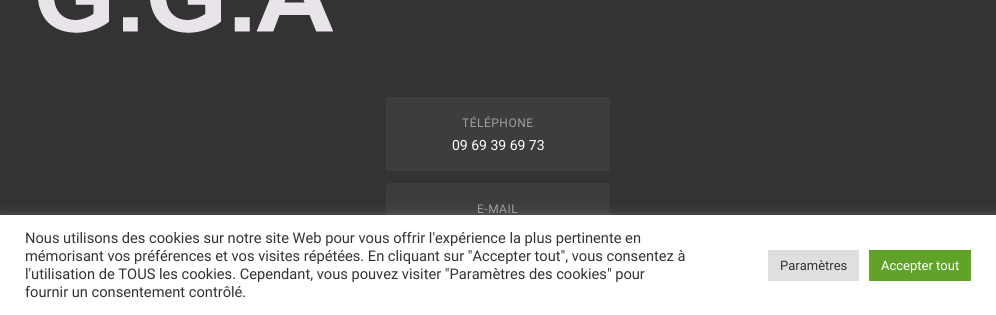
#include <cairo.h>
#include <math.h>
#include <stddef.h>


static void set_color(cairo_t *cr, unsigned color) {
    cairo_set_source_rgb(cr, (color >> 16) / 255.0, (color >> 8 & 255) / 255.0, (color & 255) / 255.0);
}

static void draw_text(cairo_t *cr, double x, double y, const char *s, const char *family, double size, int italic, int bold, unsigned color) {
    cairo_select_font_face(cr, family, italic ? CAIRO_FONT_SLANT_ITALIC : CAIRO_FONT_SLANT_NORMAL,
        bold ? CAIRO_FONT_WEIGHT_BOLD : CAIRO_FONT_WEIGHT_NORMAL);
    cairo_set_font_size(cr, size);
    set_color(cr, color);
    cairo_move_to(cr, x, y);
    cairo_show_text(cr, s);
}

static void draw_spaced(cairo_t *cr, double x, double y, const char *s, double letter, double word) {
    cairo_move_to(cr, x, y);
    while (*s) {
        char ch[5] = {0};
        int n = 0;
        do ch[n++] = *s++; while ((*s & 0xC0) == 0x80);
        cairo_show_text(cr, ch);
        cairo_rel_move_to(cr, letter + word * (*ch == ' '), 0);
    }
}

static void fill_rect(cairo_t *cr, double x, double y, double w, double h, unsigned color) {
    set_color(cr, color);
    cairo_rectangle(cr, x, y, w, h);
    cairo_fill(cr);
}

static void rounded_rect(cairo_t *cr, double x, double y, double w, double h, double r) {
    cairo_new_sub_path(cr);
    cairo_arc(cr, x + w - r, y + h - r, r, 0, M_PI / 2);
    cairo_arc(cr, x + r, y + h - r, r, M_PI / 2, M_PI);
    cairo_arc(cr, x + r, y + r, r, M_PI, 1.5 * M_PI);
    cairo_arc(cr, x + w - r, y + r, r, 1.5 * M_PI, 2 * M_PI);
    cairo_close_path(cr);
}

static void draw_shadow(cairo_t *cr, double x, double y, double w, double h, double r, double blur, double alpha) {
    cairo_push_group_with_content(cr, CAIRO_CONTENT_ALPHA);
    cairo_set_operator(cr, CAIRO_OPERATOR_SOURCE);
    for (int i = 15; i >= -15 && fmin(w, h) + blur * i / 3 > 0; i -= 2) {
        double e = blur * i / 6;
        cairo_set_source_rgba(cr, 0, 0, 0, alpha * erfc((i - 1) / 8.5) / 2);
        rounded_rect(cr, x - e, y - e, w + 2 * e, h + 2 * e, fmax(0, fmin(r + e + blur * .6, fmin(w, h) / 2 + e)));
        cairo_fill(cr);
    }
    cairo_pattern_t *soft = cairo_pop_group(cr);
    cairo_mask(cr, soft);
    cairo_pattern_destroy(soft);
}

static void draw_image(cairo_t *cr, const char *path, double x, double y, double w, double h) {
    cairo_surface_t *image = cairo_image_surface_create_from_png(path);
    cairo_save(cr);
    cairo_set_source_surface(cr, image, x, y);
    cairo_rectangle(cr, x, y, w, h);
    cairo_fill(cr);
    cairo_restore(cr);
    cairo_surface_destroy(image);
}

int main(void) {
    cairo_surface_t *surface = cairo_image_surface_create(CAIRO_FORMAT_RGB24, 996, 315);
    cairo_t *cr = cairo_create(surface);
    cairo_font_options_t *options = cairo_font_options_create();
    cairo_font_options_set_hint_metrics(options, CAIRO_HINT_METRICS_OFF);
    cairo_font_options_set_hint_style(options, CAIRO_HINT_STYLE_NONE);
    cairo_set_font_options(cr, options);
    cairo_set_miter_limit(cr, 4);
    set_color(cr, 0x333333);
    cairo_paint(cr);
    draw_image(cr, "assets/img1.png", 38, 0, 295, 33);
    set_color(cr, 0x3D3D3D);
    rounded_rect(cr, 386, 97, 224, 74, 3);
    cairo_fill(cr);
    cairo_select_font_face(cr, "Roboto", CAIRO_FONT_SLANT_NORMAL, CAIRO_FONT_WEIGHT_NORMAL);
    cairo_set_font_size(cr, 12);
    set_color(cr, 0x9E9E9E);
    draw_spaced(cr, 462, 127, "TÉLÉPHONE", 0.5, 0);
    draw_text(cr, 452, 150, "09 69 39 69 73", "Roboto", 14, 0, 0, 0xFFFFFF);
    set_color(cr, 0x3D3D3D);
    rounded_rect(cr, 386, 183, 224, 74, 3);
    cairo_fill(cr);
    cairo_set_font_size(cr, 12);
    set_color(cr, 0x9E9E9E);
    draw_spaced(cr, 477, 213, "E-MAIL", 0.5, 0);
    set_color(cr, 0xACABAB);
    draw_shadow(cr, 0, 214, 996, 100, 0, 5, 0.3);
    fill_rect(cr, 0, 215, 996, 100, 0xFFFFFF);
    draw_text(cr, 25, 243, "Nous utilisons des cookies sur notre site Web pour vous offrir l'expérience la plus pertinente en", "Roboto", 14.65, 0, 0, 0x333333);
    draw_text(cr, 25, 261, "mémorisant vos préférences et vos visites répétées. En cliquant sur \"Accepter tout\", vous consentez à", "Roboto", 14.65, 0, 0, 0x333333);
    draw_text(cr, 25, 279, "l'utilisation de TOUS les cookies. Cependant, vous pouvez visiter \"Paramètres des cookies\" pour", "Roboto", 14.65, 0, 0, 0x333333);
    draw_text(cr, 25, 297, "fournir un consentement contrôlé.", "Roboto", 14.65, 0, 0, 0x333333);
    fill_rect(cr, 768, 250, 91, 31, 0xDEDFE0);
    draw_text(cr, 780, 270, "Paramètres", "Roboto", 13, 0, 0, 0x333333);
    fill_rect(cr, 869, 250, 102, 31, 0x61A229);
    draw_text(cr, 881, 270, "Accepter tout", "Roboto", 13, 0, 0, 0xFFFFFF);
    cairo_surface_write_to_png(surface, "output.png");
    cairo_font_options_destroy(options);
    cairo_destroy(cr);
    cairo_surface_destroy(surface);
    return 0;
}
